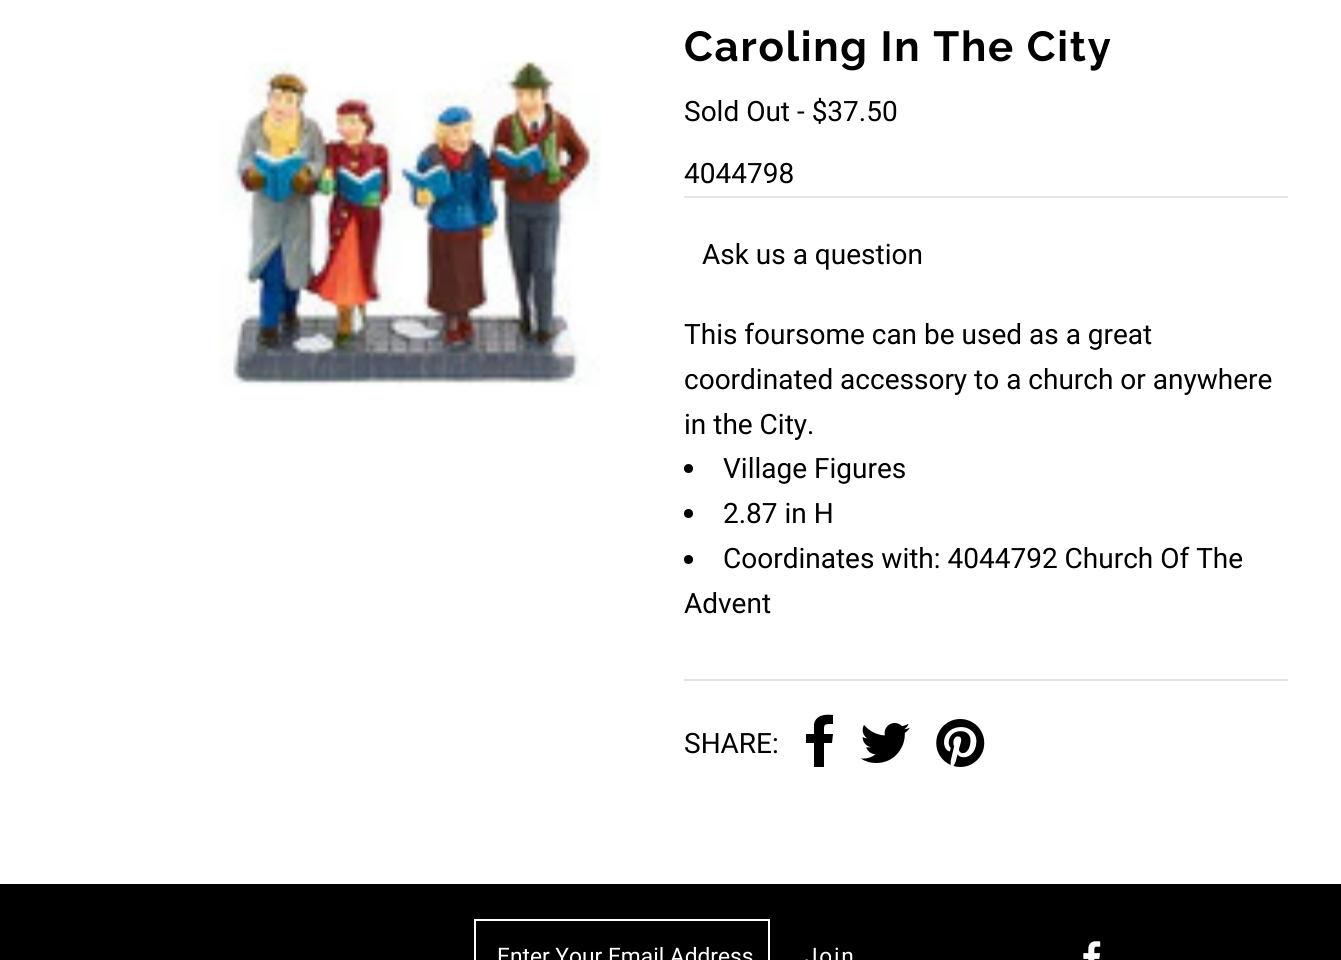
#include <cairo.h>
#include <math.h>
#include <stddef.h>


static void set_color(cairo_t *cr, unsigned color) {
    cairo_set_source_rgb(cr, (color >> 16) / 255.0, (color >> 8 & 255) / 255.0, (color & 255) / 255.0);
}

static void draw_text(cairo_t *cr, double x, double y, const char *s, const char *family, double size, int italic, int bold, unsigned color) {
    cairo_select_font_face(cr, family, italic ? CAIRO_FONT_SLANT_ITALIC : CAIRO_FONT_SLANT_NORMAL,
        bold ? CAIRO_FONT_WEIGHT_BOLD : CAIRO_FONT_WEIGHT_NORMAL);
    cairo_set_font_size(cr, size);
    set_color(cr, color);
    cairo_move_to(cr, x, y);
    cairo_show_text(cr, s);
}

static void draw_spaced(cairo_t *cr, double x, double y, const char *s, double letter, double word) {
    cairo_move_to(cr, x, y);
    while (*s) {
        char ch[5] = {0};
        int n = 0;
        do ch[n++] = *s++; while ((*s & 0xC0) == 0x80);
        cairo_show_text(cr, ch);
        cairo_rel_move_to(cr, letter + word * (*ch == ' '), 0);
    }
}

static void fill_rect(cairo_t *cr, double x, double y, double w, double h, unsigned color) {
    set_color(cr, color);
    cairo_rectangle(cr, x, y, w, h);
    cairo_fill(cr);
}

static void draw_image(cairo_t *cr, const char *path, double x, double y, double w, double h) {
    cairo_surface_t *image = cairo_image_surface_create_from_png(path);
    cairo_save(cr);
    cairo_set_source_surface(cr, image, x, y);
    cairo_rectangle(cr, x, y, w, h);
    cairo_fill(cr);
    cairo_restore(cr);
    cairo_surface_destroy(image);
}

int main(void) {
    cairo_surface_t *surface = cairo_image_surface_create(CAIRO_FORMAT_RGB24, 1341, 960);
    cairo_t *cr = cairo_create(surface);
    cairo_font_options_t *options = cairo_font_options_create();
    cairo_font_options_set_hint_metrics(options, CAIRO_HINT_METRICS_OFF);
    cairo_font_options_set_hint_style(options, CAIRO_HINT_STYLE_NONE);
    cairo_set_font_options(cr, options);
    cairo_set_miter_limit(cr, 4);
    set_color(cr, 0xFFFFFF);
    cairo_paint(cr);
    draw_image(cr, "assets/img1.png", 219, 59, 382, 328);
    cairo_select_font_face(cr, "Raleway", CAIRO_FONT_SLANT_NORMAL, CAIRO_FONT_WEIGHT_BOLD);
    cairo_set_font_size(cr, 42);
    set_color(cr, 0x000000);
    draw_spaced(cr, 684, 61, "Caroling In The City", 1.75, 0);
    draw_text(cr, 684, 121, "Sold Out - $37.50", "Roboto", 28, 0, 0, 0x000000);
    draw_text(cr, 684, 183, "4044798", "Roboto", 28, 0, 0, 0x000000);
    fill_rect(cr, 684, 196, 604, 2, 0xE5E5E5);
    draw_text(cr, 702, 264, "Ask us a question", "Roboto", 28, 0, 0, 0x000000);
    draw_text(cr, 684, 344, "This foursome can be used as a great", "Roboto", 28, 0, 0, 0x000000);
    draw_text(cr, 684, 389, "coordinated accessory to a church or anywhere", "Roboto", 28, 0, 0, 0x000000);
    draw_text(cr, 684, 434, "in the City.", "Roboto", 28, 0, 0, 0x000000);
    cairo_new_path(cr);
    cairo_arc(cr, 688.5, 468.5, 4.5, 0, 2 * M_PI);
    cairo_fill(cr);
    draw_text(cr, 723, 478, "Village Figures", "Roboto", 28, 0, 0, 0x000000);
    cairo_new_path(cr);
    cairo_arc(cr, 688.5, 513.5, 4.5, 0, 2 * M_PI);
    cairo_fill(cr);
    draw_text(cr, 723, 523, "2.87 in H", "Roboto", 28, 0, 0, 0x000000);
    cairo_new_path(cr);
    cairo_arc(cr, 688.5, 559.5, 4.5, 0, 2 * M_PI);
    cairo_fill(cr);
    draw_text(cr, 723, 568, "Coordinates with: 4044792 Church Of The", "Roboto", 28, 0, 0, 0x000000);
    draw_text(cr, 684, 613, "Advent", "Roboto", 28, 0, 0, 0x000000);
    fill_rect(cr, 684, 679, 604, 2, 0xE5E5E5);
    draw_text(cr, 684, 753, "SHARE:", "Roboto", 28, 0, 0, 0x000000);
    cairo_new_path(cr);
    cairo_move_to(cr, 833, 715);
    cairo_line_to(cr, 833, 724);
    cairo_curve_to(cr, 823, 724, 824, 724, 824, 734);
    cairo_line_to(cr, 833, 734);
    cairo_line_to(cr, 832, 743);
    cairo_line_to(cr, 824, 743);
    cairo_line_to(cr, 824, 767);
    cairo_line_to(cr, 814, 767);
    cairo_line_to(cr, 814, 743);
    cairo_line_to(cr, 806, 743);
    cairo_line_to(cr, 806, 734);
    cairo_line_to(cr, 814, 734);
    cairo_line_to(cr, 814, 724);
    cairo_curve_to(cr, 816, 715, 825, 714, 833, 715);
    cairo_close_path(cr);
    cairo_fill(cr);
    draw_image(cr, "assets/img2.png", 860, 723, 50, 40);
    draw_image(cr, "assets/img3.png", 936, 719, 49, 48);
    fill_rect(cr, 0, 884, 1341, 76, 0x000000);
    cairo_rectangle(cr, 475, 920, 294, 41);
    set_color(cr, 0xFFFFFF);
    cairo_stroke(cr);
    draw_text(cr, 497, 964, "Enter Your Email Address", "Roboto", 22.75, 0, 0, 0xFFFFFF);
    draw_spaced(cr, 805, 964, "Join", 1.75, 0);
    draw_image(cr, "assets/img4.png", 1083, 941, 18, 19);
    cairo_surface_write_to_png(surface, "output.png");
    cairo_font_options_destroy(options);
    cairo_destroy(cr);
    cairo_surface_destroy(surface);
    return 0;
}
